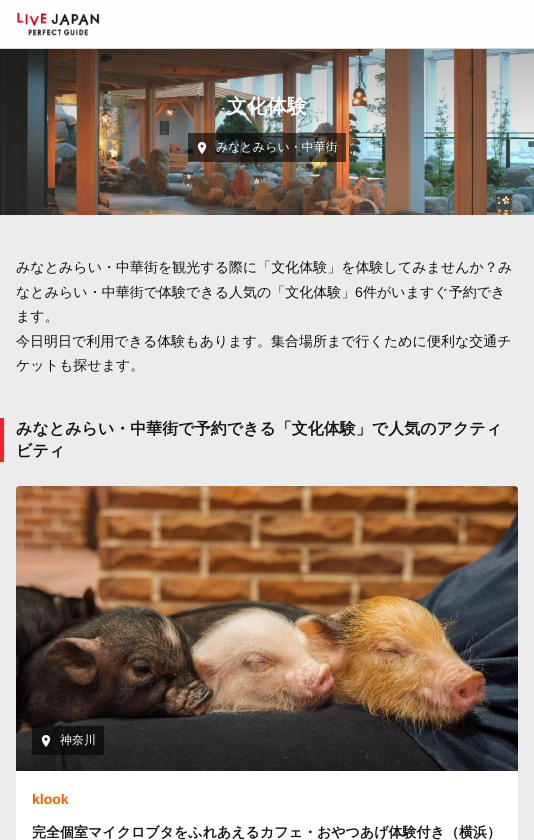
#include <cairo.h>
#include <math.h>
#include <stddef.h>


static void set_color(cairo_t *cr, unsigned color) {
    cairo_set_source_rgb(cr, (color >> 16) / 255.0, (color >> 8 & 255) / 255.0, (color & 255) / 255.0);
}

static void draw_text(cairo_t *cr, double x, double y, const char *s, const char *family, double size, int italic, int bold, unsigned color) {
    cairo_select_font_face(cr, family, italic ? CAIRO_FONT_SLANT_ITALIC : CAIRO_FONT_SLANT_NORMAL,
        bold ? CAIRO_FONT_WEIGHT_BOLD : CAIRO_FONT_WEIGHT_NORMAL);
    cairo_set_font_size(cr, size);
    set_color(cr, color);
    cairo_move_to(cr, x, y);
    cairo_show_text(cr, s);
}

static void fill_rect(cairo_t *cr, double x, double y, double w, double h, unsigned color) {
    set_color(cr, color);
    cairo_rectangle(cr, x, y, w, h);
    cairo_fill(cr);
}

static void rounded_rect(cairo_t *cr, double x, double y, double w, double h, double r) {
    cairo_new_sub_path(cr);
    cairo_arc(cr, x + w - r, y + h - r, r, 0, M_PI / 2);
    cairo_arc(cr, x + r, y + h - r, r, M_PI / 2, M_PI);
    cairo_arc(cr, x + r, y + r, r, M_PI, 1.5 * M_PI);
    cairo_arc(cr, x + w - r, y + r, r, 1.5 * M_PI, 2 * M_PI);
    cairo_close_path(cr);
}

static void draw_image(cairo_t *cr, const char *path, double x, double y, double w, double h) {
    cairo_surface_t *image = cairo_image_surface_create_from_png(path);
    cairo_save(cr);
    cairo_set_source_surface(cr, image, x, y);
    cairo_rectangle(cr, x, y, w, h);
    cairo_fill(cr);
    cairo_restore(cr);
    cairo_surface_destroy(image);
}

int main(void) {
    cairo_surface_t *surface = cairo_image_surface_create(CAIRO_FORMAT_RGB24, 534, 840);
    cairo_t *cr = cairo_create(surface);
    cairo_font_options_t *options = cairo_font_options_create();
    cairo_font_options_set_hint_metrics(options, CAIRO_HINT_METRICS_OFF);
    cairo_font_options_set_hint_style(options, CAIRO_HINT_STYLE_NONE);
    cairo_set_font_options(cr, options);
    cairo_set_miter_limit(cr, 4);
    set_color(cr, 0xECECEC);
    cairo_paint(cr);
    fill_rect(cr, 0, 0, 534, 48, 0xFEFEFE);
    fill_rect(cr, 0, 48, 534, 1, 0xD4D4D4);
    draw_image(cr, "assets/img1.png", 17, 12, 83, 24);
    draw_image(cr, "assets/img2.png", 0, 49, 534, 166);
    draw_text(cr, 227, 113, "文化体験", "WenQuanYi Zen Hei", 20, 0, 1, 0xFFFFFF);
    cairo_set_source_rgba(cr, 0, 0, 0, 0.6);
    cairo_rectangle(cr, 188, 133, 158, 29);
    cairo_fill(cr);
    draw_image(cr, "assets/img3.png", 197, 142, 10, 12);
    draw_text(cr, 216, 151, "みなとみらい・中華街", "WenQuanYi Zen Hei Medium", 12, 0, 0, 0xFFFFFF);
    draw_text(cr, 16, 272, "みなとみらい・中華街を観光する際に「文化体験」を体験してみませんか？み", "WenQuanYi Zen Hei Medium", 14, 0, 0, 0x131313);
    draw_text(cr, 16, 297, "なとみらい・中華街で体験できる人気の「文化体験」", "WenQuanYi Zen Hei Medium", 14, 0, 0, 0x131313);
    draw_text(cr, 355, 297, "6", "Liberation Sans", 14, 0, 0, 0x131313);
    draw_text(cr, 363, 297, "件がいますぐ予約でき", "WenQuanYi Zen Hei Medium", 14, 0, 0, 0x131313);
    draw_text(cr, 16, 321, "ます。", "WenQuanYi Zen Hei Medium", 14, 0, 0, 0x131313);
    draw_text(cr, 16, 346, "今日明日で利用できる体験もあります。集合場所まで行くために便利な交通チ", "WenQuanYi Zen Hei Medium", 14, 0, 0, 0x131313);
    draw_text(cr, 16, 370, "ケットも探せます。", "WenQuanYi Zen Hei Medium", 14, 0, 0, 0x131313);
    fill_rect(cr, 0, 418, 4, 44, 0xF0232D);
    draw_text(cr, 16, 434, "みなとみらい・中華街で予約できる「文化体験」で人気のアクティ", "WenQuanYi Zen Hei", 16, 0, 1, 0x131313);
    draw_text(cr, 16, 456, "ビティ", "WenQuanYi Zen Hei", 16, 0, 1, 0x131313);
    set_color(cr, 0xFFFFFF);
    rounded_rect(cr, 16, 486, 502, 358, 4);
    cairo_fill(cr);
    draw_image(cr, "assets/img4.png", 16, 486, 502, 285);
    cairo_set_source_rgba(cr, 0, 0, 0, 0.6);
    cairo_rectangle(cr, 32, 726, 72, 29);
    cairo_fill(cr);
    draw_image(cr, "assets/img5.png", 41, 735, 10, 12);
    draw_text(cr, 60, 744, "神奈川", "WenQuanYi Zen Hei Medium", 12, 0, 0, 0xFFFFFF);
    draw_text(cr, 32, 804, "klook", "Liberation Sans", 14, 0, 1, 0xFF5B00);
    draw_text(cr, 32, 837, "完全個室マイクロブタをふれあえるカフェ・おやつあげ体験付き（横浜）", "WenQuanYi Zen Hei", 14, 0, 1, 0x131313);
    cairo_surface_write_to_png(surface, "output.png");
    cairo_font_options_destroy(options);
    cairo_destroy(cr);
    cairo_surface_destroy(surface);
    return 0;
}
